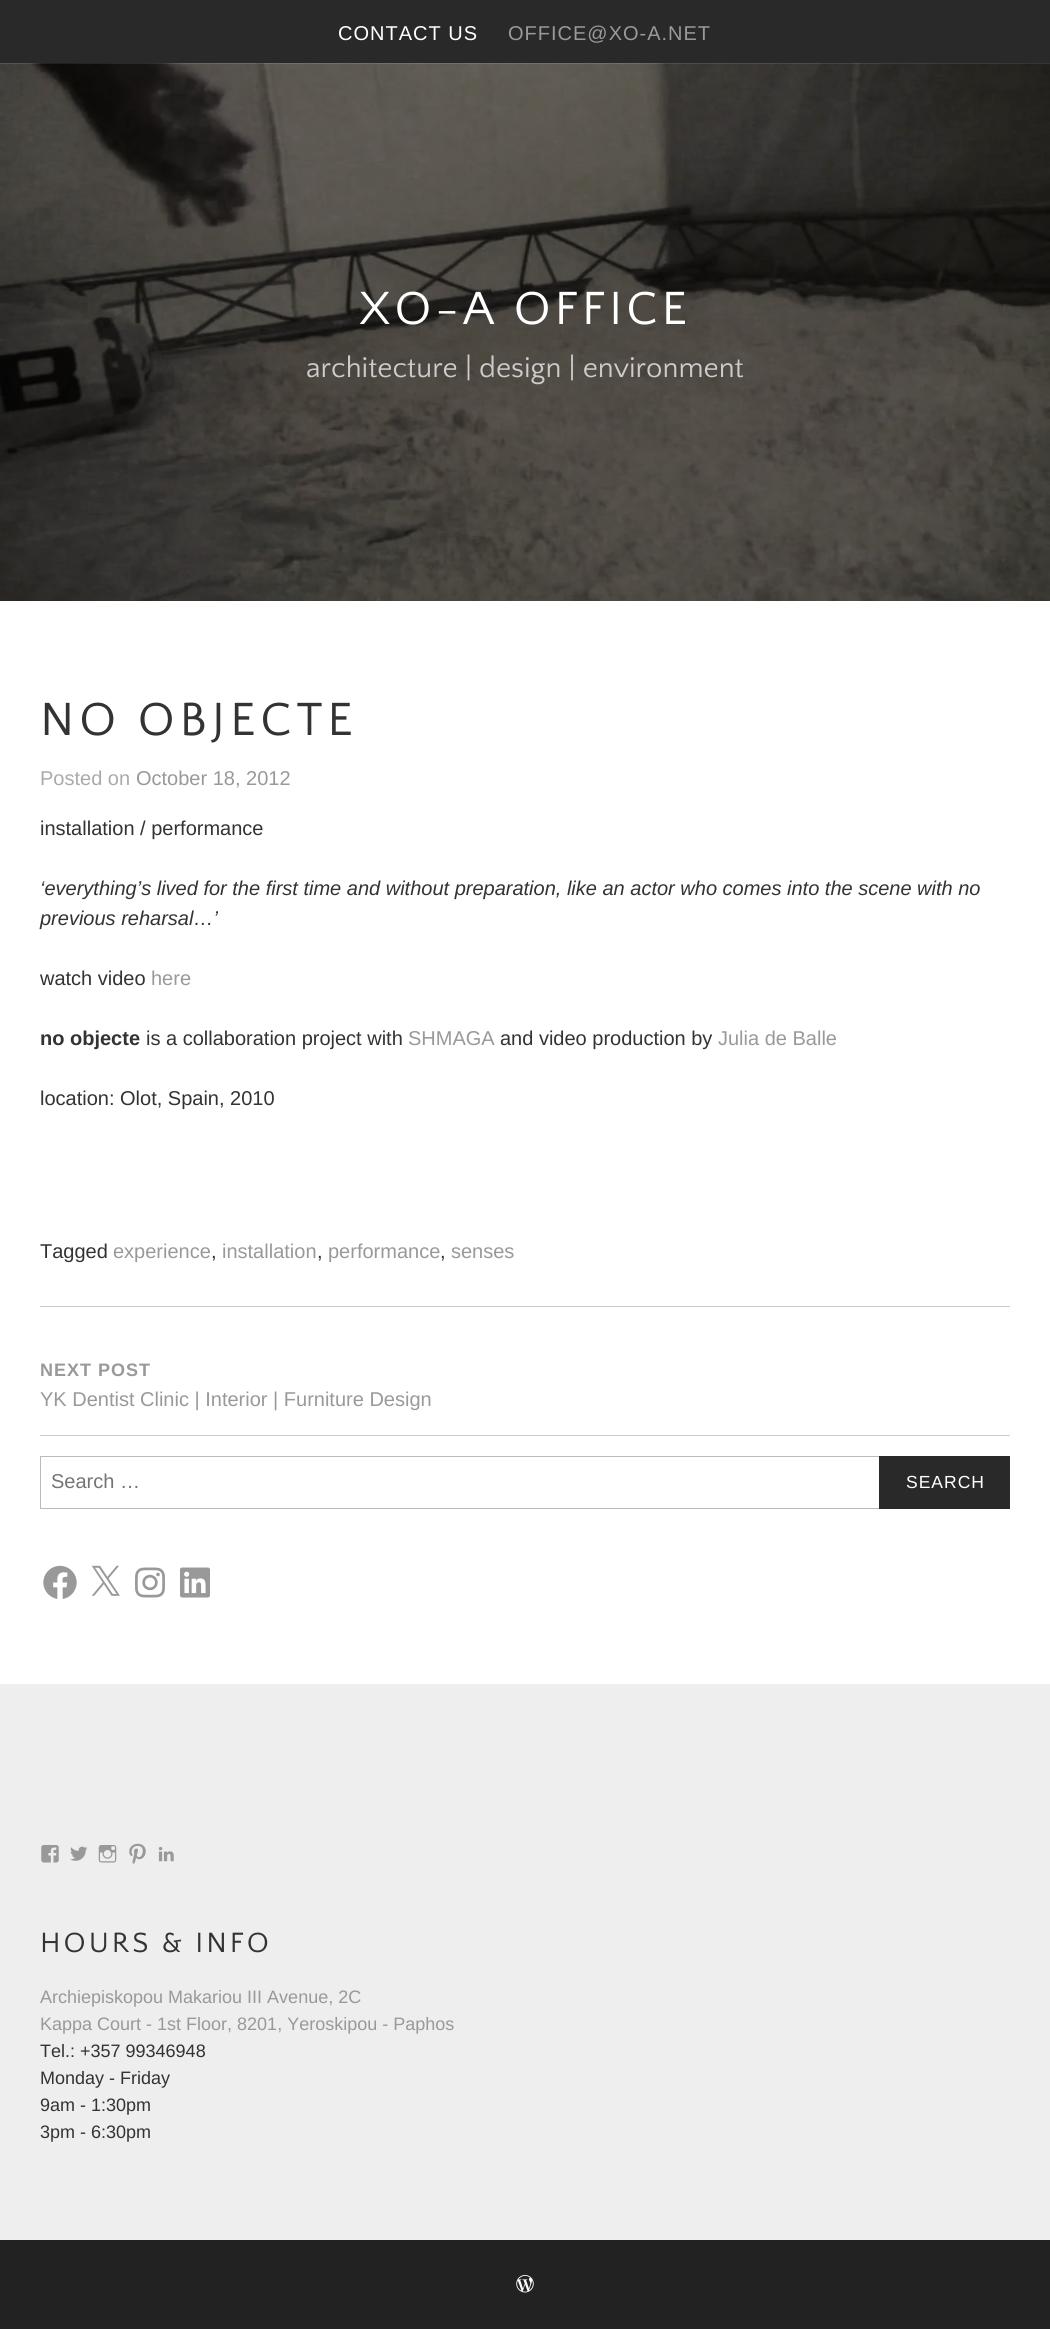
#include <cairo.h>
#include <math.h>
#include <stddef.h>


static void set_color(cairo_t *cr, unsigned color) {
    cairo_set_source_rgb(cr, (color >> 16) / 255.0, (color >> 8 & 255) / 255.0, (color & 255) / 255.0);
}

static void draw_text(cairo_t *cr, double x, double y, const char *s, const char *family, double size, int italic, int bold, unsigned color) {
    cairo_select_font_face(cr, family, italic ? CAIRO_FONT_SLANT_ITALIC : CAIRO_FONT_SLANT_NORMAL,
        bold ? CAIRO_FONT_WEIGHT_BOLD : CAIRO_FONT_WEIGHT_NORMAL);
    cairo_set_font_size(cr, size);
    set_color(cr, color);
    cairo_move_to(cr, x, y);
    cairo_show_text(cr, s);
}

static void draw_spaced(cairo_t *cr, double x, double y, const char *s, double letter, double word) {
    cairo_move_to(cr, x, y);
    while (*s) {
        char ch[5] = {0};
        int n = 0;
        do ch[n++] = *s++; while ((*s & 0xC0) == 0x80);
        cairo_show_text(cr, ch);
        cairo_rel_move_to(cr, letter + word * (*ch == ' '), 0);
    }
}

static void fill_rect(cairo_t *cr, double x, double y, double w, double h, unsigned color) {
    set_color(cr, color);
    cairo_rectangle(cr, x, y, w, h);
    cairo_fill(cr);
}

static void draw_image(cairo_t *cr, const char *path, double x, double y, double w, double h) {
    cairo_surface_t *image = cairo_image_surface_create_from_png(path);
    cairo_save(cr);
    cairo_set_source_surface(cr, image, x, y);
    cairo_rectangle(cr, x, y, w, h);
    cairo_fill(cr);
    cairo_restore(cr);
    cairo_surface_destroy(image);
}

int main(void) {
    cairo_surface_t *surface = cairo_image_surface_create(CAIRO_FORMAT_RGB24, 1050, 2329);
    cairo_t *cr = cairo_create(surface);
    cairo_font_options_t *options = cairo_font_options_create();
    cairo_font_options_set_hint_metrics(options, CAIRO_HINT_METRICS_OFF);
    cairo_font_options_set_hint_style(options, CAIRO_HINT_STYLE_NONE);
    cairo_set_font_options(cr, options);
    cairo_set_miter_limit(cr, 4);
    set_color(cr, 0xFFFFFF);
    cairo_paint(cr);
    fill_rect(cr, 0, 0, 1050, 64, 0x29292A);
    cairo_select_font_face(cr, "Arimo", CAIRO_FONT_SLANT_NORMAL, CAIRO_FONT_WEIGHT_NORMAL);
    cairo_set_font_size(cr, 20);
    set_color(cr, 0xFFFFFF);
    draw_spaced(cr, 338, 40, "CONTACT US", 1, 0);
    set_color(cr, 0x999999);
    draw_spaced(cr, 508, 40, "OFFICE@XO-A.NET", 1, 0);
    draw_image(cr, "assets/img1.png", 0, 63, 1050, 538);
    cairo_select_font_face(cr, "Quattrocento Sans", CAIRO_FONT_SLANT_NORMAL, CAIRO_FONT_WEIGHT_NORMAL);
    cairo_set_font_size(cr, 48.75);
    set_color(cr, 0xFFFFFF);
    draw_spaced(cr, 359, 324, "XO-A OFFICE", 3.9, 0);
    draw_text(cr, 306, 377, "architecture | design | environment", "Quattrocento Sans", 29.25, 0, 0, 0xCCCCCC);
    cairo_set_font_size(cr, 48.75);
    set_color(cr, 0x333333);
    draw_spaced(cr, 40, 735, "NO OBJECTE", 4.9, 0);
    draw_text(cr, 40, 785, "Posted on", "Arimo", 20, 0, 0, 0xAAAAAA);
    draw_text(cr, 136, 785, "October 18, 2012", "Arimo", 20, 0, 0, 0x999999);
    draw_text(cr, 40, 835, "installation / performance", "Arimo", 20, 0, 0, 0x333333);
    draw_text(cr, 40, 895, "‘everything’s lived for the first time and without preparation, like an actor who comes into the scene with no", "Arimo", 20, 1, 0, 0x333333);
    draw_text(cr, 40, 925, "previous reharsal…’", "Arimo", 20, 1, 0, 0x333333);
    draw_text(cr, 40, 985, "watch video", "Arimo", 20, 0, 0, 0x333333);
    draw_text(cr, 151, 985, "here", "Arimo", 20, 0, 0, 0x999999);
    draw_text(cr, 40, 1045, "no objecte", "Arimo", 20, 0, 1, 0x333333);
    draw_text(cr, 146, 1045, "is a collaboration project with", "Arimo", 20, 0, 0, 0x333333);
    draw_text(cr, 408, 1045, "SHMAGA", "Arimo", 20, 0, 0, 0x999999);
    draw_text(cr, 500, 1045, "and video production by", "Arimo", 20, 0, 0, 0x333333);
    draw_text(cr, 718, 1045, "Julia de Balle", "Arimo", 20, 0, 0, 0x999999);
    draw_text(cr, 40, 1105, "location: Olot, Spain, 2010", "Arimo", 20, 0, 0, 0x333333);
    draw_text(cr, 40, 1258, "Tagged", "Arimo", 20, 0, 0, 0x333333);
    draw_text(cr, 113, 1258, "experience", "Arimo", 20, 0, 0, 0x999999);
    draw_text(cr, 211, 1258, ",", "Arimo", 20, 0, 0, 0x333333);
    draw_text(cr, 222, 1258, "installation", "Arimo", 20, 0, 0, 0x999999);
    draw_text(cr, 317, 1258, ",", "Arimo", 20, 0, 0, 0x333333);
    draw_text(cr, 328, 1258, "performance", "Arimo", 20, 0, 0, 0x999999);
    draw_text(cr, 440, 1258, ",", "Arimo", 20, 0, 0, 0x333333);
    draw_text(cr, 451, 1258, "senses", "Arimo", 20, 0, 0, 0x999999);
    fill_rect(cr, 40, 1306, 970, 1, 0xCCCCCC);
    fill_rect(cr, 40, 1435, 970, 1, 0xCCCCCC);
    cairo_select_font_face(cr, "Arimo", CAIRO_FONT_SLANT_NORMAL, CAIRO_FONT_WEIGHT_BOLD);
    cairo_set_font_size(cr, 18);
    set_color(cr, 0x999999);
    draw_spaced(cr, 40, 1376, "NEXT POST", 1, 0);
    draw_text(cr, 40, 1406, "YK Dentist Clinic | Interior | Furniture Design", "Arimo", 20, 0, 0, 0x999999);
    cairo_rectangle(cr, 40.5, 1456.5, 969, 52);
    set_color(cr, 0xBBBBBB);
    cairo_set_line_width(cr, 1);
    cairo_stroke(cr);
    draw_text(cr, 51, 1488, "Search …", "Arimo", 20, 0, 0, 0x757575);
    fill_rect(cr, 879, 1456, 131, 53, 0x29292A);
    cairo_set_font_size(cr, 17.5);
    set_color(cr, 0xFFFFFF);
    draw_spaced(cr, 906, 1488, "SEARCH", 1, 0);
    draw_image(cr, "assets/img2.png", 43, 1565, 34, 34);
    draw_image(cr, "assets/img3.png", 91, 1565, 29, 31);
    draw_image(cr, "assets/img4.png", 135, 1567, 30, 31);
    draw_image(cr, "assets/img5.png", 180, 1567, 30, 31);
    fill_rect(cr, 0, 1684, 1050, 556, 0xEEEEEE);
    draw_image(cr, "assets/img6.png", 41, 1845, 18, 18);
    draw_image(cr, "assets/img7.png", 70, 1846, 18, 15);
    draw_image(cr, "assets/img8.png", 98, 1845, 19, 18);
    draw_image(cr, "assets/img9.png", 129, 1843, 17, 21);
    draw_image(cr, "assets/img10.png", 158, 1847, 16, 15);
    cairo_select_font_face(cr, "Quattrocento Sans", CAIRO_FONT_SLANT_NORMAL, CAIRO_FONT_WEIGHT_NORMAL);
    cairo_set_font_size(cr, 29.25);
    set_color(cr, 0x333333);
    draw_spaced(cr, 40, 1952, "HOURS & INFO", 3, 0);
    draw_text(cr, 40, 2003, "Archiepiskopou Makariou III Avenue, 2C", "Arimo", 18, 0, 0, 0x999999);
    draw_text(cr, 40, 2030, "Kappa Court - 1st Floor, 8201, Yeroskipou - Paphos", "Arimo", 18, 0, 0, 0x999999);
    draw_text(cr, 40, 2057, "Tel.: +357 99346948", "Arimo", 18, 0, 0, 0x333333);
    draw_text(cr, 40, 2084, "Monday - Friday", "Arimo", 18, 0, 0, 0x333333);
    draw_text(cr, 40, 2111, "9am - 1:30pm", "Arimo", 18, 0, 0, 0x333333);
    draw_text(cr, 40, 2138, "3pm - 6:30pm", "Arimo", 18, 0, 0, 0x333333);
    fill_rect(cr, 0, 2240, 1050, 89, 0x222222);
    draw_image(cr, "assets/img11.png", 516, 2275, 18, 18);
    cairo_surface_write_to_png(surface, "output.png");
    cairo_font_options_destroy(options);
    cairo_destroy(cr);
    cairo_surface_destroy(surface);
    return 0;
}
